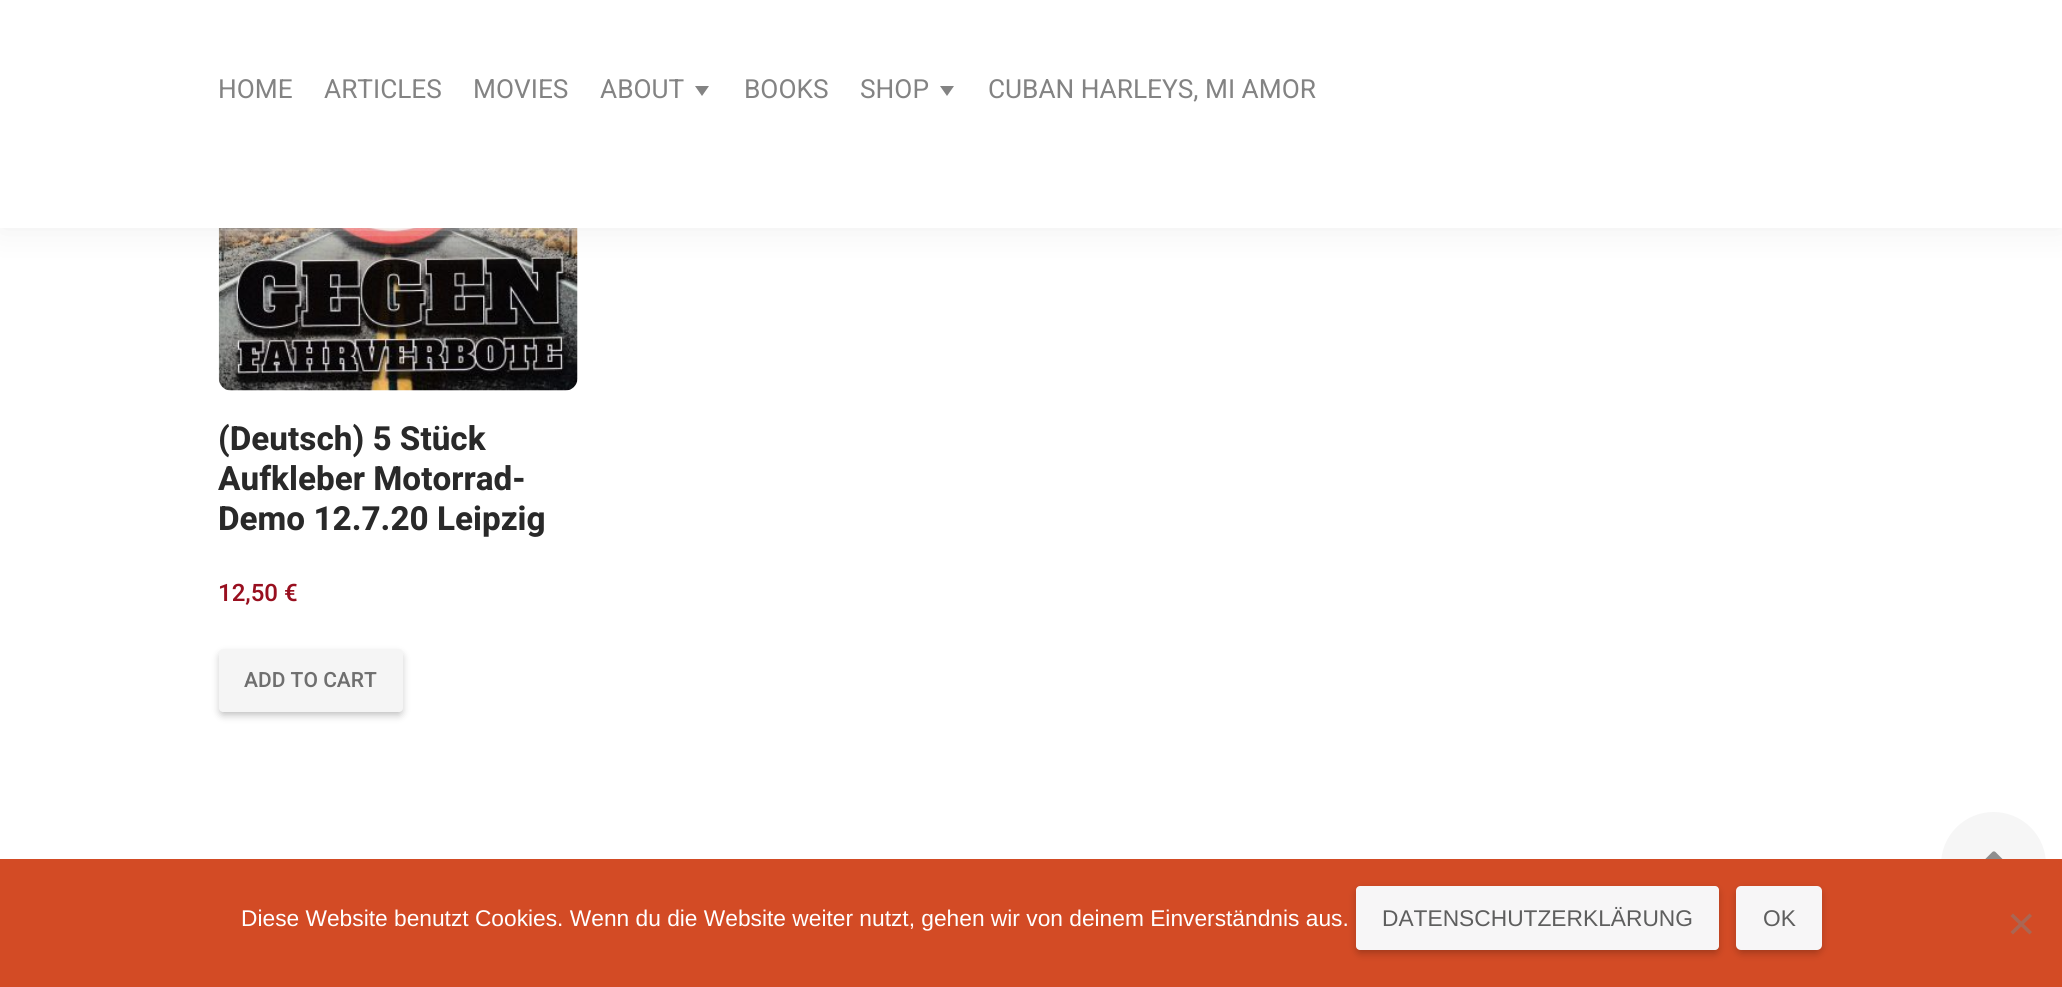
#include <cairo.h>
#include <math.h>
#include <stddef.h>


static void set_color(cairo_t *cr, unsigned color) {
    cairo_set_source_rgb(cr, (color >> 16) / 255.0, (color >> 8 & 255) / 255.0, (color & 255) / 255.0);
}

static void draw_text(cairo_t *cr, double x, double y, const char *s, const char *family, double size, int italic, int bold, unsigned color) {
    cairo_select_font_face(cr, family, italic ? CAIRO_FONT_SLANT_ITALIC : CAIRO_FONT_SLANT_NORMAL,
        bold ? CAIRO_FONT_WEIGHT_BOLD : CAIRO_FONT_WEIGHT_NORMAL);
    cairo_set_font_size(cr, size);
    set_color(cr, color);
    cairo_move_to(cr, x, y);
    cairo_show_text(cr, s);
}

static void fill_rect(cairo_t *cr, double x, double y, double w, double h, unsigned color) {
    set_color(cr, color);
    cairo_rectangle(cr, x, y, w, h);
    cairo_fill(cr);
}

static void rounded_rect(cairo_t *cr, double x, double y, double w, double h, double r) {
    cairo_new_sub_path(cr);
    cairo_arc(cr, x + w - r, y + h - r, r, 0, M_PI / 2);
    cairo_arc(cr, x + r, y + h - r, r, M_PI / 2, M_PI);
    cairo_arc(cr, x + r, y + r, r, M_PI, 1.5 * M_PI);
    cairo_arc(cr, x + w - r, y + r, r, 1.5 * M_PI, 2 * M_PI);
    cairo_close_path(cr);
}

static void draw_shadow(cairo_t *cr, double x, double y, double w, double h, double r, double blur, double alpha) {
    cairo_push_group_with_content(cr, CAIRO_CONTENT_ALPHA);
    cairo_set_operator(cr, CAIRO_OPERATOR_SOURCE);
    for (int i = 15; i >= -15 && fmin(w, h) + blur * i / 3 > 0; i -= 2) {
        double e = blur * i / 6;
        cairo_set_source_rgba(cr, 0, 0, 0, alpha * erfc((i - 1) / 8.5) / 2);
        rounded_rect(cr, x - e, y - e, w + 2 * e, h + 2 * e, fmax(0, fmin(r + e + blur * .6, fmin(w, h) / 2 + e)));
        cairo_fill(cr);
    }
    cairo_pattern_t *soft = cairo_pop_group(cr);
    cairo_mask(cr, soft);
    cairo_pattern_destroy(soft);
}

static void draw_image(cairo_t *cr, const char *path, double x, double y, double w, double h) {
    cairo_surface_t *image = cairo_image_surface_create_from_png(path);
    cairo_save(cr);
    cairo_set_source_surface(cr, image, x, y);
    cairo_rectangle(cr, x, y, w, h);
    cairo_fill(cr);
    cairo_restore(cr);
    cairo_surface_destroy(image);
}

int main(void) {
    cairo_surface_t *surface = cairo_image_surface_create(CAIRO_FORMAT_RGB24, 2062, 987);
    cairo_t *cr = cairo_create(surface);
    cairo_font_options_t *options = cairo_font_options_create();
    cairo_font_options_set_hint_metrics(options, CAIRO_HINT_METRICS_OFF);
    cairo_font_options_set_hint_style(options, CAIRO_HINT_STYLE_NONE);
    cairo_set_font_options(cr, options);
    cairo_set_miter_limit(cr, 4);
    set_color(cr, 0xFFFFFF);
    cairo_paint(cr);
    draw_image(cr, "assets/img1.png", 218, 228, 360, 163);
    set_color(cr, 0xEEEEEE);
    draw_shadow(cr, 0, 0, 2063, 228, 0, 16.5, 1);
    fill_rect(cr, 0, 0, 2062, 228, 0xFFFFFF);
    draw_text(cr, 218, 98, "HOME", "Heebo", 26.25, 0, 0, 0x838383);
    draw_text(cr, 324, 98, "ARTICLES", "Heebo", 26.25, 0, 0, 0x838383);
    draw_text(cr, 473, 98, "MOVIES", "Heebo", 26.25, 0, 0, 0x838383);
    draw_text(cr, 600, 98, "ABOUT", "Heebo", 26.25, 0, 0, 0x838383);
    cairo_new_path(cr);
    cairo_move_to(cr, 695, 86);
    cairo_line_to(cr, 709, 86);
    cairo_line_to(cr, 702, 96);
    cairo_close_path(cr);
    cairo_fill(cr);
    draw_text(cr, 744, 98, "BOOKS", "Heebo", 26.25, 0, 0, 0x838383);
    draw_text(cr, 860, 98, "SHOP", "Heebo", 26.25, 0, 0, 0x838383);
    cairo_new_path(cr);
    cairo_move_to(cr, 940, 86);
    cairo_line_to(cr, 954, 86);
    cairo_line_to(cr, 947, 96);
    cairo_close_path(cr);
    cairo_fill(cr);
    draw_text(cr, 988, 98, "CUBAN HARLEYS, MI AMOR", "Heebo", 26.25, 0, 0, 0x838383);
    draw_text(cr, 218, 450, "(Deutsch) 5 Stück", "Heebo", 33.25, 0, 1, 0x292929);
    draw_text(cr, 218, 490, "Aufkleber Motorrad-", "Heebo", 33.25, 0, 1, 0x292929);
    draw_text(cr, 218, 530, "Demo 12.7.20 Leipzig", "Heebo", 33.25, 0, 1, 0x292929);
    draw_text(cr, 218, 601, "12,50 €", "Heebo Medium", 24, 0, 0, 0x980F1F);
    set_color(cr, 0x000000);
    draw_shadow(cr, 221, 655, 180, 59, 2, 4.5, 0.3);
    set_color(cr, 0xF5F5F5);
    rounded_rect(cr, 219, 649, 184, 63, 4);
    cairo_fill(cr);
    draw_text(cr, 244, 687, "ADD TO CART", "Heebo Medium", 21, 0, 0, 0x6F6F6F);
    set_color(cr, 0xF6F6F6);
    cairo_new_path(cr);
    cairo_arc(cr, 1993.5, 864.5, 52.5, 0, 2 * M_PI);
    cairo_fill(cr);
    draw_image(cr, "assets/img2.png", 1985, 851, 18, 8);
    fill_rect(cr, 0, 859, 2062, 128, 0xD34B25);
    draw_text(cr, 241, 926, "Diese Website benutzt Cookies. Wenn du die Website weiter nutzt, gehen wir von deinem Einverständnis aus.", "Liberation Sans", 22.75, 0, 0, 0xFFFFFF);
    set_color(cr, 0x000000);
    draw_shadow(cr, 1358, 891, 359, 61, 2, 4.5, 0.3);
    set_color(cr, 0xF7F6F7);
    rounded_rect(cr, 1356, 886, 363, 64, 4);
    cairo_fill(cr);
    draw_text(cr, 1382, 926, "DATENSCHUTZERKLÄRUNG", "Liberation Sans", 22.75, 0, 0, 0x5E5E5E);
    set_color(cr, 0x000000);
    draw_shadow(cr, 1738, 891, 82, 61, 4, 4.5, 0.3);
    set_color(cr, 0xF7F6F7);
    rounded_rect(cr, 1736, 886, 86, 64, 5);
    cairo_fill(cr);
    draw_text(cr, 1763, 926, "OK", "Liberation Sans", 22.75, 0, 0, 0x5E5E5E);
    set_color(cr, 0xAA6653);
    cairo_new_path(cr);
    cairo_move_to(cr, 2029.5, 913.5);
    cairo_line_to(cr, 2032, 916);
    cairo_line_to(cr, 2013, 934.5);
    cairo_line_to(cr, 2010.5, 932);
    cairo_close_path(cr);
    cairo_fill(cr);
    cairo_new_path(cr);
    cairo_move_to(cr, 2010.5, 916);
    cairo_line_to(cr, 2013, 913.5);
    cairo_line_to(cr, 2032, 932);
    cairo_line_to(cr, 2029.5, 934.5);
    cairo_close_path(cr);
    cairo_fill(cr);
    cairo_surface_write_to_png(surface, "output.png");
    cairo_font_options_destroy(options);
    cairo_destroy(cr);
    cairo_surface_destroy(surface);
    return 0;
}
